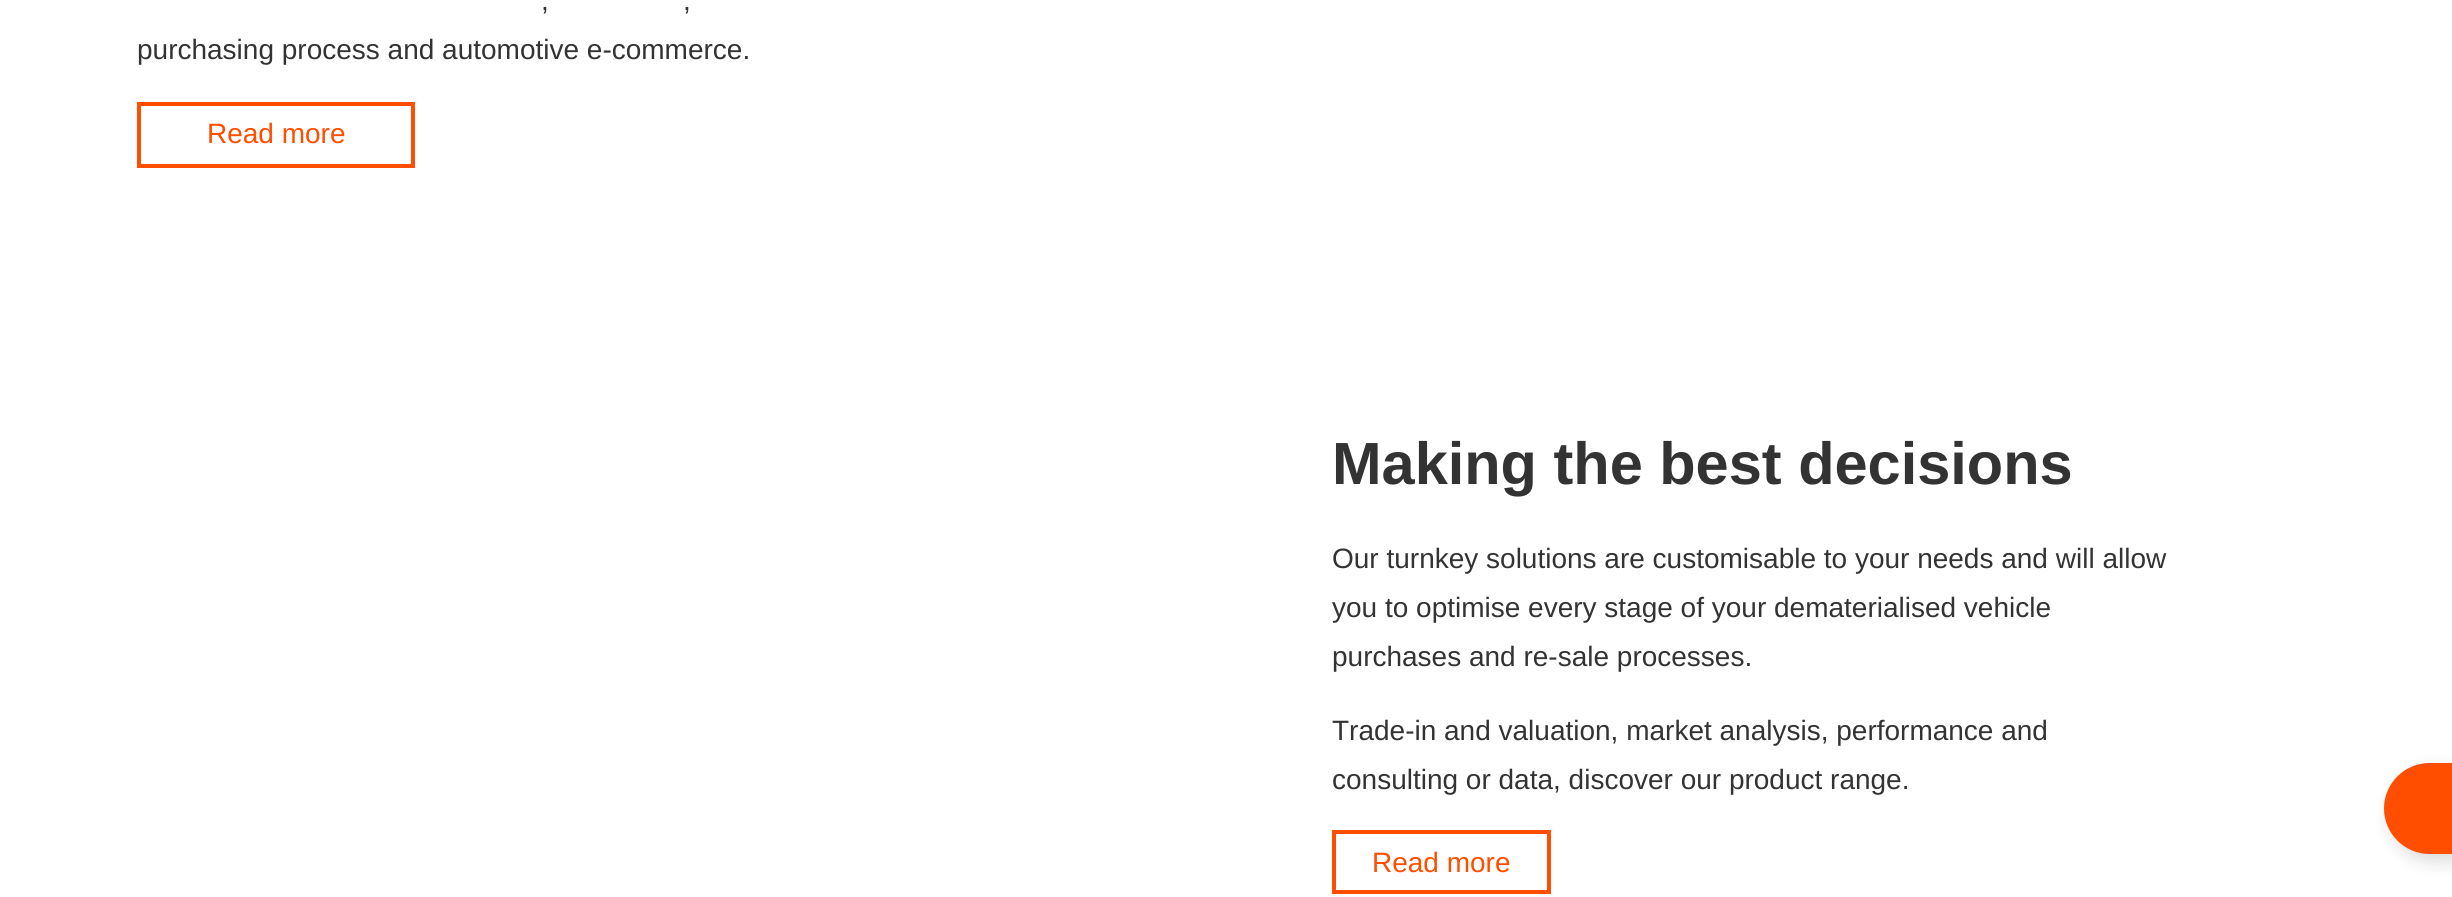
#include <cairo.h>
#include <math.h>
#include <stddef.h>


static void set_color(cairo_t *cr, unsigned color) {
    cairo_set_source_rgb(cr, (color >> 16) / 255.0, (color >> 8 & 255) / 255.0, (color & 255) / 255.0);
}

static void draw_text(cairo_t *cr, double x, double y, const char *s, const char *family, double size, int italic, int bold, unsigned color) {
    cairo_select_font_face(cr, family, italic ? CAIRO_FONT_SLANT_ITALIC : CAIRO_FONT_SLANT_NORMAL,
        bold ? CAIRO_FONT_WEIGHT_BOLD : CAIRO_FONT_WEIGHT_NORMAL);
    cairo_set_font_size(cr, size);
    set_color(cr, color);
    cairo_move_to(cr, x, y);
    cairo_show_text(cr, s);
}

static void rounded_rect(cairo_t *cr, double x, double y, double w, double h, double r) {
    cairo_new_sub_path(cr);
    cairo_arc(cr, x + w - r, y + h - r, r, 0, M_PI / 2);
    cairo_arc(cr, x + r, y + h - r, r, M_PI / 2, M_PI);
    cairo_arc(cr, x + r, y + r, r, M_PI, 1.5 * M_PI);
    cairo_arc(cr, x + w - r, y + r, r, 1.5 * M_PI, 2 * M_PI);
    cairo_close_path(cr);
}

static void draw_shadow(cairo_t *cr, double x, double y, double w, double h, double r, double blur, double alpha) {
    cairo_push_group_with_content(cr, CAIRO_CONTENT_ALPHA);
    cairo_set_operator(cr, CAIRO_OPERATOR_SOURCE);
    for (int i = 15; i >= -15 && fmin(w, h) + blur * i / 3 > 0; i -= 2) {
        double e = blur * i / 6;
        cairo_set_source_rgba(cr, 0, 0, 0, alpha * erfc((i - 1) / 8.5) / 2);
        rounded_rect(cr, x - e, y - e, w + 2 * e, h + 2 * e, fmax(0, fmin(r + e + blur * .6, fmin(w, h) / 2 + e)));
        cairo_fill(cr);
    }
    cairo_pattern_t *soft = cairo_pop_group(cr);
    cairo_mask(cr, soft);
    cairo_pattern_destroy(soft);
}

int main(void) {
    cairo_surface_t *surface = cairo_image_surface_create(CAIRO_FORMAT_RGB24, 2452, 897);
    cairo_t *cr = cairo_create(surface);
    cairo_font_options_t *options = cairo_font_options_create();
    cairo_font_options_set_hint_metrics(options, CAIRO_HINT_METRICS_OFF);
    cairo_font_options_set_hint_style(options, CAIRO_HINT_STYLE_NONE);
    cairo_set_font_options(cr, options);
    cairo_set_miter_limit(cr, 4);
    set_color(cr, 0xFFFFFF);
    cairo_paint(cr);
    draw_text(cr, 541, 10, ",", "Liberation Sans", 28, 0, 0, 0x333333);
    draw_text(cr, 683, 10, ",", "Liberation Sans", 28, 0, 0, 0x333333);
    draw_text(cr, 137, 59, "purchasing process and automotive e-commerce.", "Liberation Sans", 28, 0, 0, 0x333333);
    cairo_rectangle(cr, 139, 104, 274, 62);
    set_color(cr, 0xFF4E00);
    cairo_set_line_width(cr, 4);
    cairo_stroke(cr);
    draw_text(cr, 207, 143, "Read more", "Liberation Sans", 28, 0, 0, 0xFF4E00);
    draw_text(cr, 1332, 484, "Making the best decisions", "Liberation Sans", 59.5, 0, 1, 0x333333);
    draw_text(cr, 1332, 568, "Our turnkey solutions are customisable to your needs and will allow", "Liberation Sans", 28, 0, 0, 0x333333);
    draw_text(cr, 1332, 617, "you to optimise every stage of your dematerialised vehicle", "Liberation Sans", 28, 0, 0, 0x333333);
    draw_text(cr, 1332, 666, "purchases and re-sale processes.", "Liberation Sans", 28, 0, 0, 0x333333);
    draw_text(cr, 1332, 740, "Trade-in and valuation, market analysis, performance and", "Liberation Sans", 28, 0, 0, 0x333333);
    draw_text(cr, 1332, 789, "consulting or data, discover our product range.", "Liberation Sans", 28, 0, 0, 0x333333);
    cairo_rectangle(cr, 1334, 832, 215, 60);
    set_color(cr, 0xFF4E00);
    cairo_stroke(cr);
    draw_text(cr, 1372, 872, "Read more", "Liberation Sans", 28, 0, 0, 0xFF4E00);
    set_color(cr, 0x000000);
    draw_shadow(cr, 2391, 770, 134, 91, 45.5, 9, 0.15);
    set_color(cr, 0xFF4E00);
    cairo_new_path(cr);
    cairo_move_to(cr, 2429.5, 763);
    cairo_line_to(cr, 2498, 763);
    cairo_line_to(cr, 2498, 854);
    cairo_line_to(cr, 2429.5, 854);
    cairo_curve_to(cr, 2404.5, 854, 2384, 833.5, 2384, 808.5);
    cairo_curve_to(cr, 2384, 783.5, 2404.5, 763, 2429.5, 763);
    cairo_close_path(cr);
    cairo_fill(cr);
    cairo_surface_write_to_png(surface, "output.png");
    cairo_font_options_destroy(options);
    cairo_destroy(cr);
    cairo_surface_destroy(surface);
    return 0;
}
